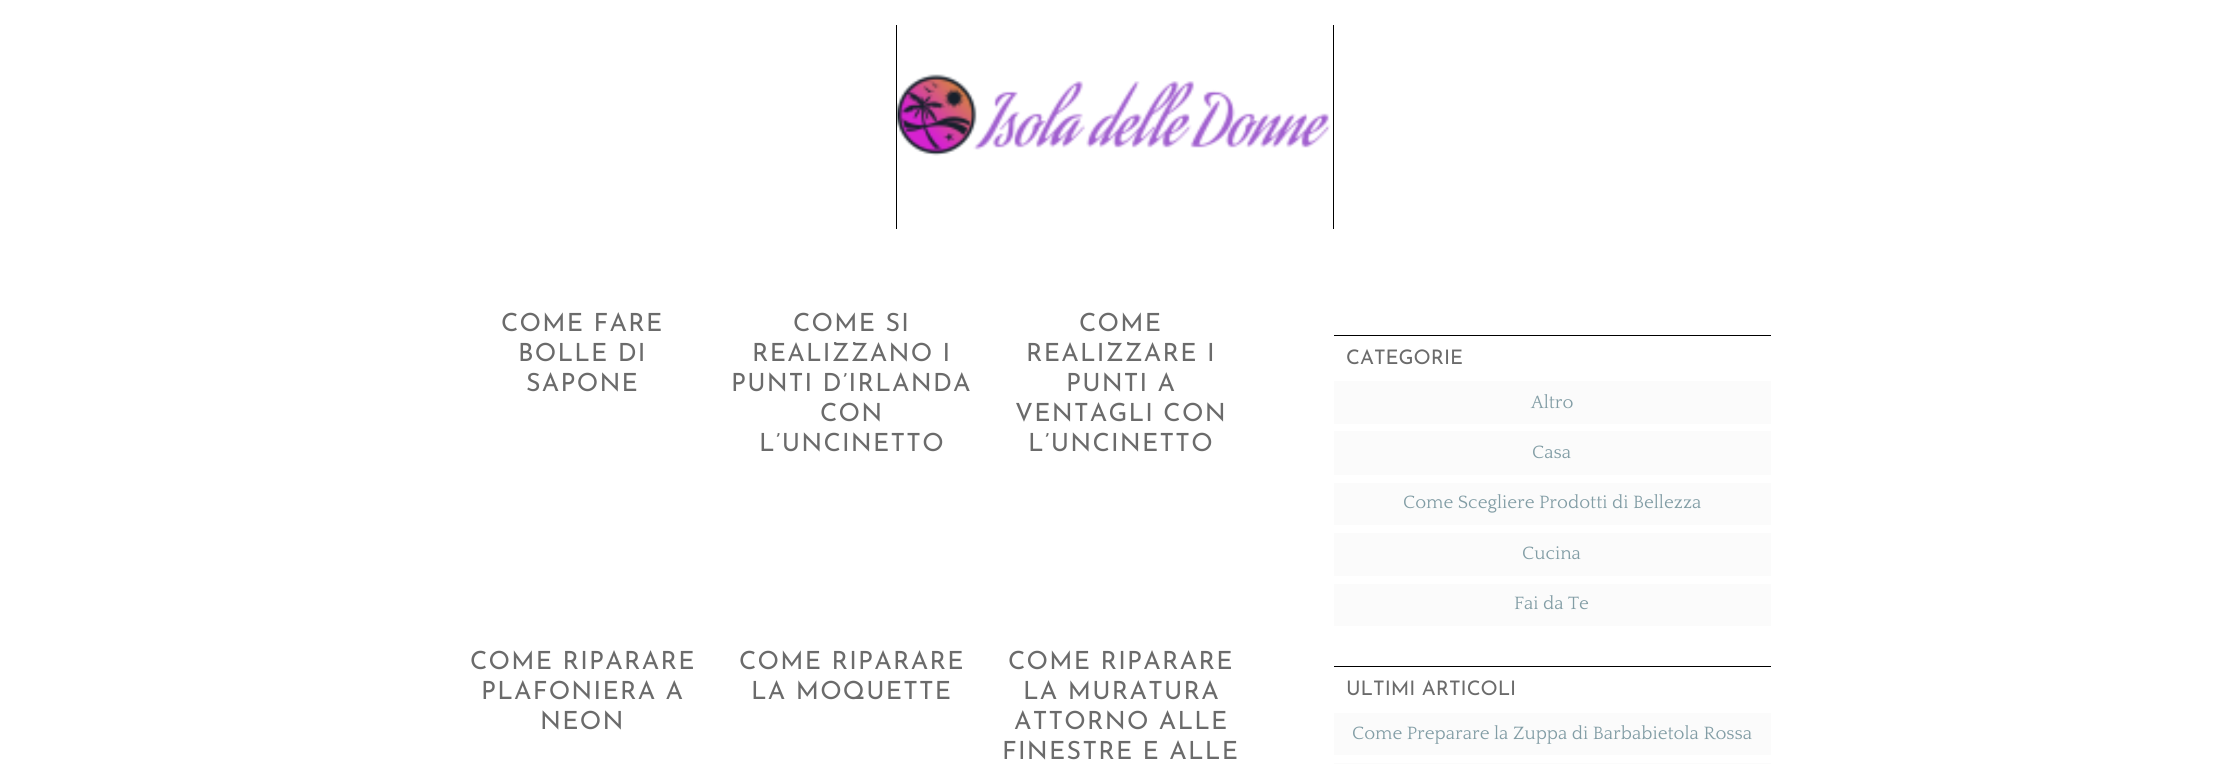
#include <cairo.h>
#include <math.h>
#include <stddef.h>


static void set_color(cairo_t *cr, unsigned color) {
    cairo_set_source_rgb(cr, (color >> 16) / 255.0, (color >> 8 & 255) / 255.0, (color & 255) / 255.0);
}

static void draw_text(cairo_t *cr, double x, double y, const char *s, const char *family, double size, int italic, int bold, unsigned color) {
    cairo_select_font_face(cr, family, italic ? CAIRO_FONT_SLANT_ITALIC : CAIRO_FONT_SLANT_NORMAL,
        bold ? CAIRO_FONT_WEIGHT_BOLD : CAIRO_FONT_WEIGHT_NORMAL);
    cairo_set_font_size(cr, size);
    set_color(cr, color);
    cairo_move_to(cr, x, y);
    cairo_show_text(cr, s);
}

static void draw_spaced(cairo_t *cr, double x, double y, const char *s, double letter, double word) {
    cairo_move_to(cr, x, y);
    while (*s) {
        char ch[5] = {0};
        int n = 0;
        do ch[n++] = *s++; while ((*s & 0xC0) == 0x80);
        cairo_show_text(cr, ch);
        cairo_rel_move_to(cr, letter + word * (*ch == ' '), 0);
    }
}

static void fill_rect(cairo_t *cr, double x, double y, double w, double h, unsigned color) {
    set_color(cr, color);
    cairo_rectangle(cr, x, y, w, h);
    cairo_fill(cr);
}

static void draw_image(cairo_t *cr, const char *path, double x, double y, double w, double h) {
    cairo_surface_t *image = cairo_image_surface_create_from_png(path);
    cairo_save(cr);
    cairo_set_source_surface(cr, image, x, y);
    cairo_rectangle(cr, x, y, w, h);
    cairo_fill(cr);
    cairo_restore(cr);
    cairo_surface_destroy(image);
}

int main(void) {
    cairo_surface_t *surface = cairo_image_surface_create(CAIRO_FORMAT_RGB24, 2228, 764);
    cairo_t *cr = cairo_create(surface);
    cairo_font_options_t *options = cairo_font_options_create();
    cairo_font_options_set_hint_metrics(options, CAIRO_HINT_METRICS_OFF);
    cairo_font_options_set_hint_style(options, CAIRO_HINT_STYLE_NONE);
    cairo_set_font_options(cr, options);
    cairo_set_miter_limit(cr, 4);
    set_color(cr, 0xFFFFFF);
    cairo_paint(cr);
    fill_rect(cr, 1333, 25, 1, 204, 0x000000);
    fill_rect(cr, 896, 25, 1, 204, 0x000000);
    draw_image(cr, "assets/img1.png", 897, 74, 434, 82);
    cairo_select_font_face(cr, "Josefin Sans Thin", CAIRO_FONT_SLANT_NORMAL, CAIRO_FONT_WEIGHT_NORMAL);
    cairo_set_font_size(cr, 25);
    set_color(cr, 0x6B6B6B);
    draw_spaced(cr, 501, 331, "COME FARE", 1.25, 0);
    draw_spaced(cr, 518, 361, "BOLLE DI", 1.25, 0);
    draw_spaced(cr, 526, 391, "SAPONE", 1.25, 0);
    draw_spaced(cr, 793, 331, "COME SI", 1.25, 0);
    draw_spaced(cr, 752, 361, "REALIZZANO I", 1.25, 0);
    draw_spaced(cr, 731, 391, "PUNTI D’IRLANDA", 1.25, 0);
    draw_spaced(cr, 820, 421, "CON", 1.25, 0);
    draw_spaced(cr, 759, 451, "L’UNCINETTO", 1.25, 0);
    draw_spaced(cr, 1079, 331, "COME", 1.25, 0);
    draw_spaced(cr, 1026, 361, "REALIZZARE I", 1.25, 0);
    draw_spaced(cr, 1066, 391, "PUNTI A", 1.25, 0);
    draw_spaced(cr, 1015, 421, "VENTAGLI CON", 1.25, 0);
    draw_spaced(cr, 1028, 451, "L’UNCINETTO", 1.25, 0);
    draw_spaced(cr, 470, 669, "COME RIPARARE", 1.25, 0);
    draw_spaced(cr, 481, 699, "PLAFONIERA A", 1.25, 0);
    draw_spaced(cr, 540, 729, "NEON", 1.25, 0);
    draw_spaced(cr, 739, 669, "COME RIPARARE", 1.25, 0);
    draw_spaced(cr, 751, 699, "LA MOQUETTE", 1.25, 0);
    draw_spaced(cr, 1008, 669, "COME RIPARARE", 1.25, 0);
    draw_spaced(cr, 1023, 699, "LA MURATURA", 1.25, 0);
    draw_spaced(cr, 1014, 729, "ATTORNO ALLE", 1.25, 0);
    draw_spaced(cr, 1002, 759, "FINESTRE E ALLE", 1.25, 0);
    fill_rect(cr, 1334, 335, 437, 1, 0x000000);
    draw_text(cr, 1346, 364, "CATEGORIE", "Josefin Sans Thin", 20, 0, 0, 0x6B6B6B);
    fill_rect(cr, 1334, 381, 437, 43, 0xFBFBFB);
    draw_text(cr, 1531, 408, "Altro", "Quattrocento", 18.75, 0, 0, 0x829DA5);
    fill_rect(cr, 1334, 431, 437, 44, 0xFBFBFB);
    draw_text(cr, 1532, 458, "Casa", "Quattrocento", 18.75, 0, 0, 0x829DA5);
    fill_rect(cr, 1334, 483, 437, 42, 0xFBFBFB);
    draw_text(cr, 1403, 508, "Come Scegliere Prodotti di Bellezza", "Quattrocento", 18.75, 0, 0, 0x829DA5);
    fill_rect(cr, 1334, 533, 437, 43, 0xFBFBFB);
    draw_text(cr, 1522, 559, "Cucina", "Quattrocento", 18.75, 0, 0, 0x829DA5);
    fill_rect(cr, 1334, 584, 437, 42, 0xFBFBFB);
    draw_text(cr, 1514, 609, "Fai da Te", "Quattrocento", 18.75, 0, 0, 0x829DA5);
    fill_rect(cr, 1334, 666, 437, 1, 0x000000);
    draw_text(cr, 1346, 695, "ULTIMI ARTICOLI", "Josefin Sans Thin", 20, 0, 0, 0x6B6B6B);
    fill_rect(cr, 1334, 713, 437, 42, 0xFBFBFB);
    draw_text(cr, 1352, 739, "Come Preparare la Zuppa di Barbabietola Rossa", "Quattrocento", 18.75, 0, 0, 0x829DA5);
    fill_rect(cr, 1334, 763, 437, 1, 0xFBFBFB);
    cairo_surface_write_to_png(surface, "output.png");
    cairo_font_options_destroy(options);
    cairo_destroy(cr);
    cairo_surface_destroy(surface);
    return 0;
}
